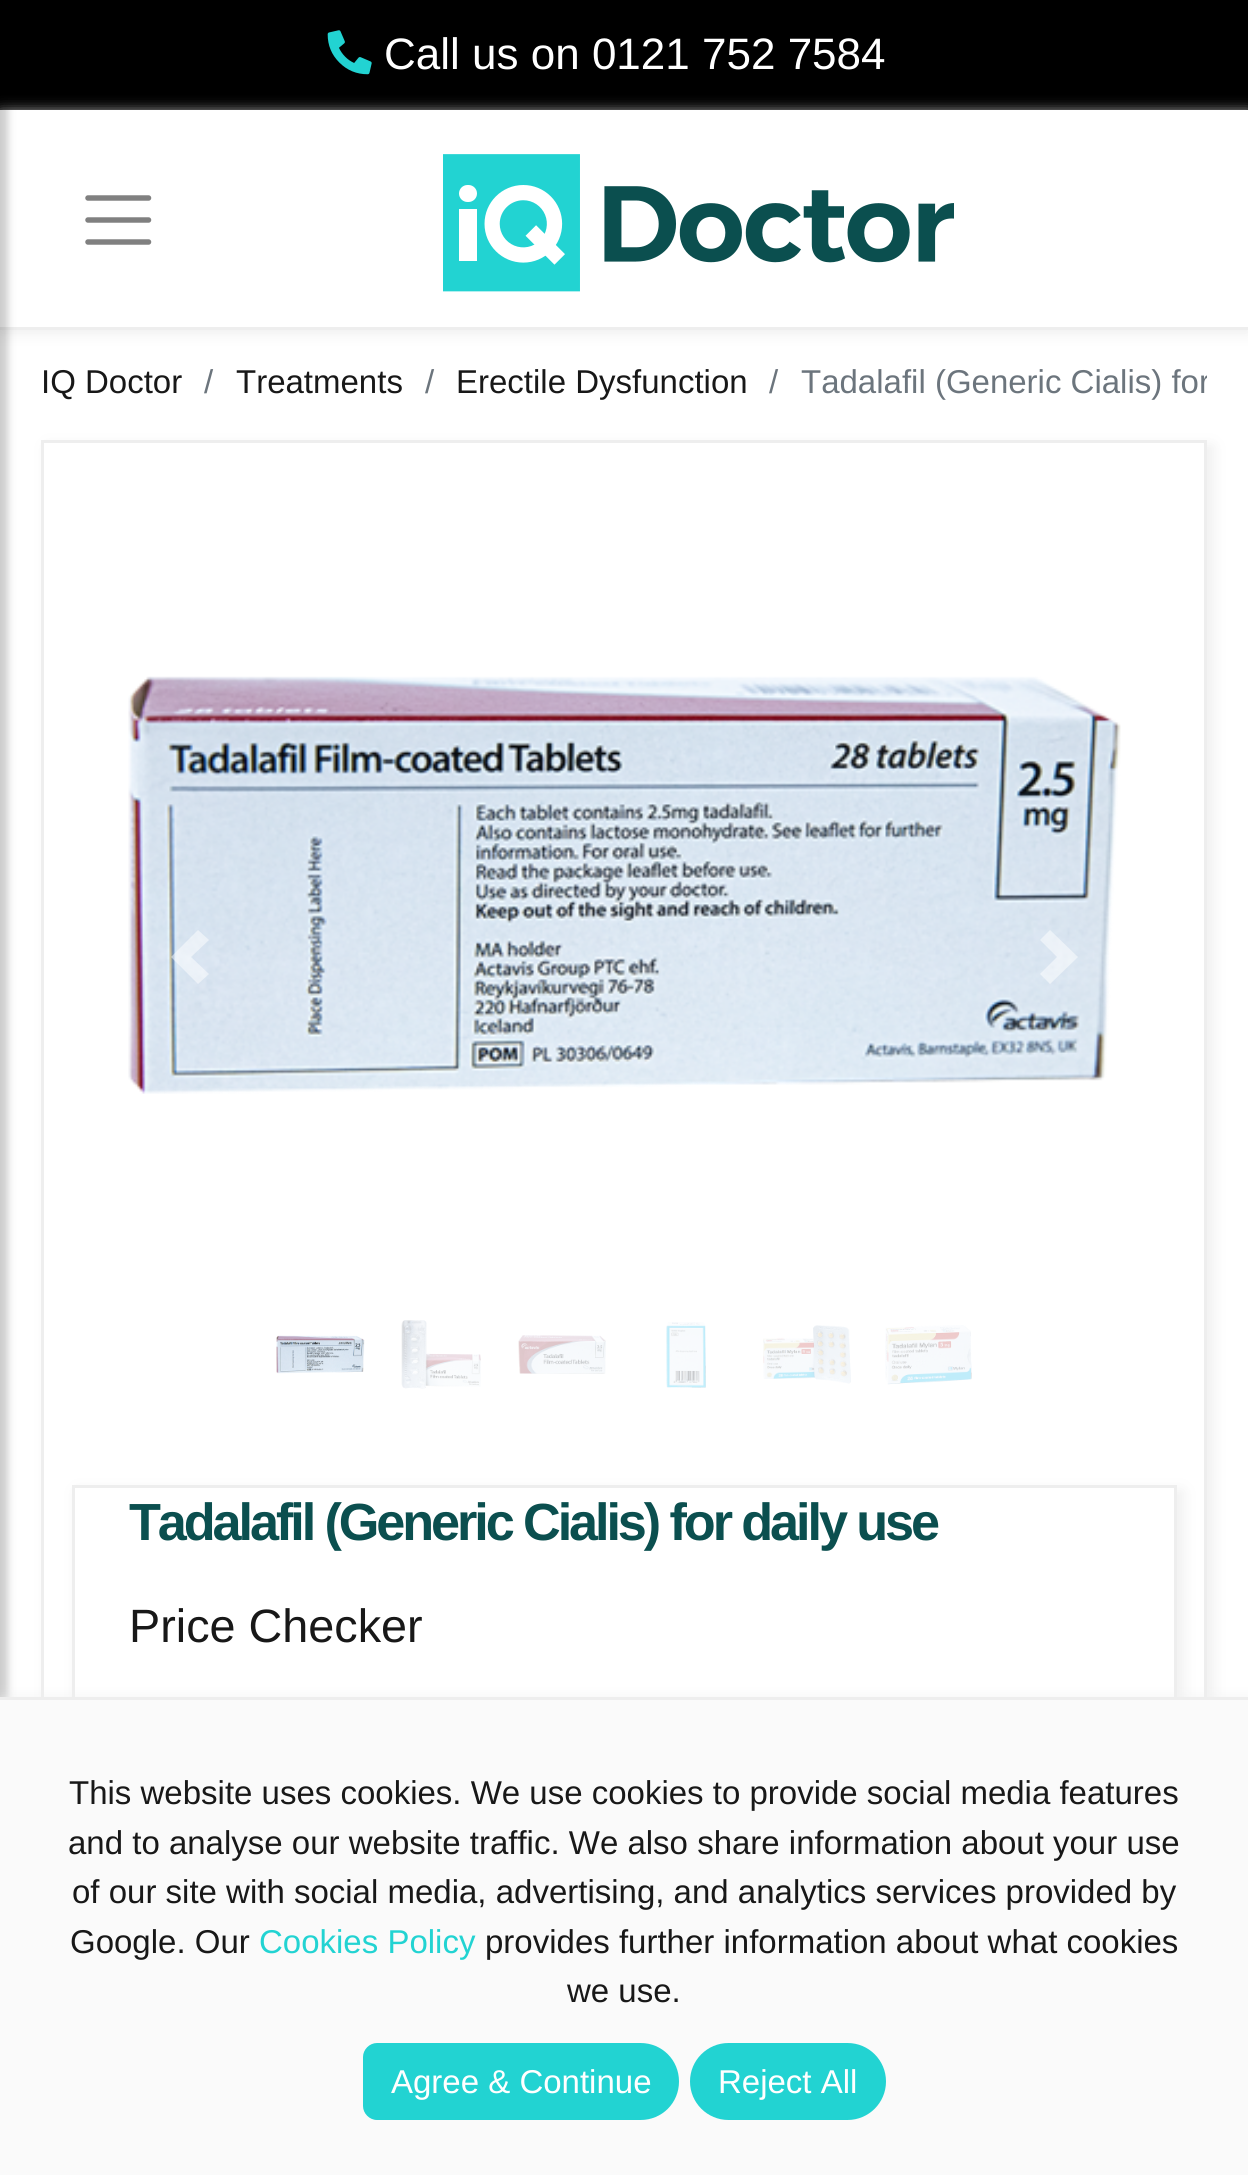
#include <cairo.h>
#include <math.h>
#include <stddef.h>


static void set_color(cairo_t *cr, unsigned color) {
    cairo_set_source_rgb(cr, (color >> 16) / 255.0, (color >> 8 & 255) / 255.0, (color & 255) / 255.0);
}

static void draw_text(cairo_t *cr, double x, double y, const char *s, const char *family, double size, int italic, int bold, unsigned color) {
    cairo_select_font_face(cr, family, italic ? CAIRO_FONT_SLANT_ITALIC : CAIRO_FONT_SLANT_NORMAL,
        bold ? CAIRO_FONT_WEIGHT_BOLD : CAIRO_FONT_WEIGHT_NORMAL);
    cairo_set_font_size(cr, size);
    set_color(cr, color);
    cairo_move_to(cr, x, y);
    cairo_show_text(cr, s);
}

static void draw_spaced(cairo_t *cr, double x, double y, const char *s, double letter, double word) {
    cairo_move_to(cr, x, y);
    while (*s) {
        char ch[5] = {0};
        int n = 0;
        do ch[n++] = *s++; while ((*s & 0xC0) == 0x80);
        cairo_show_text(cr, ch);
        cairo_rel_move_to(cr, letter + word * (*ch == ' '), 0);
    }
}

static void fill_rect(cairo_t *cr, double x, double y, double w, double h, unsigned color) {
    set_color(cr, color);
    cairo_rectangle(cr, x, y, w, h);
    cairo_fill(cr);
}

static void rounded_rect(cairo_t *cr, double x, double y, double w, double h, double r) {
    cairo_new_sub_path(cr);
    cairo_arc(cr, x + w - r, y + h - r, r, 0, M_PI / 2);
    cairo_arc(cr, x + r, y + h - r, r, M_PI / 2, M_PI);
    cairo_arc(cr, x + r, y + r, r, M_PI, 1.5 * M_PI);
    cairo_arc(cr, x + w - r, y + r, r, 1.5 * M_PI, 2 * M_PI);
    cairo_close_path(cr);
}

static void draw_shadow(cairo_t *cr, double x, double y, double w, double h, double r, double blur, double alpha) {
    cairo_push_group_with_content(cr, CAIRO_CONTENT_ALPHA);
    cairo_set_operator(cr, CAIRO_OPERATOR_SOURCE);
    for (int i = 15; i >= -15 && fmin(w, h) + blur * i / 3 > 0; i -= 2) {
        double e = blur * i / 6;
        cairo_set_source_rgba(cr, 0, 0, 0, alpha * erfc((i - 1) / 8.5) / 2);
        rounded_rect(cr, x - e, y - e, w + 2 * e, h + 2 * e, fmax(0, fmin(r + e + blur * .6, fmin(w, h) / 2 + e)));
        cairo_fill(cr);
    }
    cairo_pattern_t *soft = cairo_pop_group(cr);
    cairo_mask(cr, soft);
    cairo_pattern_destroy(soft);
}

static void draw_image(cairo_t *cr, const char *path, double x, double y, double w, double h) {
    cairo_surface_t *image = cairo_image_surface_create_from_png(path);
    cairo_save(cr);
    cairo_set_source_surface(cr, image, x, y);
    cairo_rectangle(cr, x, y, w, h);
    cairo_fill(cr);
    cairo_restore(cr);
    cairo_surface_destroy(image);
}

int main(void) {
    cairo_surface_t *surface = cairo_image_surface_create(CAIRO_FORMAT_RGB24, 1248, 2175);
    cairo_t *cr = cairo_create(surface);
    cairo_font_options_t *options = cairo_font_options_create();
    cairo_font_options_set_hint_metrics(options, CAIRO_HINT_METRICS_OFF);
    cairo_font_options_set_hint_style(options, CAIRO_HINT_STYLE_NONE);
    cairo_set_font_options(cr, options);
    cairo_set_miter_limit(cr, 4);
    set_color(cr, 0xFFFFFF);
    cairo_paint(cr);
    fill_rect(cr, 0, 0, 1248, 110, 0x000000);
    cairo_save(cr);
    cairo_set_fill_rule(cr, CAIRO_FILL_RULE_EVEN_ODD);
    cairo_new_path(cr);
    cairo_move_to(cr, 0, 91);
    cairo_line_to(cr, 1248, 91);
    cairo_line_to(cr, 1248, 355);
    cairo_line_to(cr, 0, 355);
    cairo_close_path(cr);
    cairo_move_to(cr, 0, 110);
    cairo_line_to(cr, 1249, 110);
    cairo_line_to(cr, 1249, 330);
    cairo_line_to(cr, 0, 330);
    cairo_close_path(cr);
    cairo_clip(cr);
    set_color(cr, 0xEEEEEE);
    draw_shadow(cr, 0, 113, 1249, 220, 0, 7, 1);
    cairo_restore(cr);
    fill_rect(cr, 0, 327, 1248, 3, 0xEEEEEE);
    set_color(cr, 0x000000);
    draw_shadow(cr, -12, 8, 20, 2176, 0, 4, 0.2);
    draw_image(cr, "assets/img1.png", 327, 30, 45, 45);
    draw_text(cr, 384, 69, "Call us on 0121 752 7584", "Liberation Sans", 44, 0, 0, 0xFFFFFF);
    cairo_new_path(cr);
    cairo_move_to(cr, 88, 198);
    cairo_line_to(cr, 148.5, 198);
    cairo_move_to(cr, 88, 220);
    cairo_line_to(cr, 148.5, 220);
    cairo_move_to(cr, 88, 242);
    cairo_line_to(cr, 148.5, 242);
    set_color(cr, 0x808080);
    cairo_set_line_width(cr, 5.5);
    cairo_set_line_cap(cr, CAIRO_LINE_CAP_ROUND);
    cairo_stroke(cr);
    draw_image(cr, "assets/img2.png", 443, 154, 511, 138);
    draw_text(cr, 41, 393, "IQ Doctor", "Liberation Sans", 33, 0, 0, 0x181818);
    draw_text(cr, 204, 393, "/", "Liberation Sans", 33, 0, 0, 0x6C757D);
    draw_text(cr, 236, 393, "Treatments", "Liberation Sans", 33, 0, 0, 0x181818);
    draw_text(cr, 425, 393, "/", "Liberation Sans", 33, 0, 0, 0x6C757D);
    draw_text(cr, 456, 393, "Erectile Dysfunction", "Liberation Sans", 33, 0, 0, 0x181818);
    draw_text(cr, 769, 393, "/", "Liberation Sans", 33, 0, 0, 0x6C757D);
    cairo_save(cr);
    cairo_rectangle(cr, 41, 347, 1166, 66);
    cairo_clip(cr);
    draw_text(cr, 801, 393, "Tadalafil (Generic Cialis) for", "Liberation Sans", 33, 0, 0, 0x6C757D);
    cairo_restore(cr);
    cairo_save(cr);
    cairo_set_fill_rule(cr, CAIRO_FILL_RULE_EVEN_ODD);
    cairo_new_path(cr);
    cairo_move_to(cr, 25, 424);
    cairo_line_to(cr, 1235, 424);
    cairo_line_to(cr, 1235, 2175);
    cairo_line_to(cr, 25, 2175);
    cairo_close_path(cr);
    cairo_move_to(cr, 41, 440);
    cairo_line_to(cr, 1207, 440);
    cairo_line_to(cr, 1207, 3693);
    cairo_line_to(cr, 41, 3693);
    cairo_close_path(cr);
    cairo_clip(cr);
    set_color(cr, 0xEFEFEF);
    draw_shadow(cr, 47, 446, 1166, 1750, 0, 7, 1);
    cairo_restore(cr);
    cairo_rectangle(cr, 42.5, 441.5, 1163, 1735);
    set_color(cr, 0xEEEEEE);
    cairo_set_line_width(cr, 3);
    cairo_set_line_cap(cr, CAIRO_LINE_CAP_BUTT);
    cairo_stroke(cr);
    draw_image(cr, "assets/img3.png", 128, 676, 993, 418);
    cairo_set_source_rgba(cr, 1, 1, 1, 0.5);
    cairo_new_path(cr);
    cairo_move_to(cr, 198, 930);
    cairo_line_to(cr, 171, 957);
    cairo_line_to(cr, 198, 984);
    cairo_line_to(cr, 209, 974);
    cairo_line_to(cr, 191, 957);
    cairo_line_to(cr, 209, 940);
    cairo_close_path(cr);
    cairo_fill(cr);
    cairo_new_path(cr);
    cairo_move_to(cr, 1050, 930);
    cairo_line_to(cr, 1040, 940);
    cairo_line_to(cr, 1057, 957);
    cairo_line_to(cr, 1040, 974);
    cairo_line_to(cr, 1050, 984);
    cairo_line_to(cr, 1078, 957);
    cairo_close_path(cr);
    cairo_fill(cr);
    draw_image(cr, "assets/img4.png", 276, 1335, 89, 39);
    draw_image(cr, "assets/img5.png", 401, 1320, 80, 69);
    draw_image(cr, "assets/img6.png", 518, 1335, 88, 39);
    draw_image(cr, "assets/img7.png", 666, 1322, 40, 66);
    draw_image(cr, "assets/img8.png", 763, 1325, 88, 59);
    draw_image(cr, "assets/img9.png", 885, 1325, 87, 60);
    cairo_save(cr);
    cairo_set_fill_rule(cr, CAIRO_FILL_RULE_EVEN_ODD);
    cairo_new_path(cr);
    cairo_move_to(cr, 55, 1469);
    cairo_line_to(cr, 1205, 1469);
    cairo_line_to(cr, 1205, 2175);
    cairo_line_to(cr, 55, 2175);
    cairo_close_path(cr);
    cairo_move_to(cr, 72, 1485);
    cairo_line_to(cr, 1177, 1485);
    cairo_line_to(cr, 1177, 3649);
    cairo_line_to(cr, 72, 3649);
    cairo_close_path(cr);
    cairo_clip(cr);
    set_color(cr, 0xEFEFEF);
    draw_shadow(cr, 77, 1491, 1106, 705, 0, 7, 1);
    cairo_restore(cr);
    cairo_rectangle(cr, 73.5, 1486.5, 1102, 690);
    set_color(cr, 0xEEEEEE);
    cairo_stroke(cr);
    cairo_select_font_face(cr, "Liberation Sans", CAIRO_FONT_SLANT_NORMAL, CAIRO_FONT_WEIGHT_BOLD);
    cairo_set_font_size(cr, 52.25);
    set_color(cr, 0x0B4F4F);
    draw_spaced(cr, 129, 1540, "Tadalafil (Generic Cialis) for daily use", -3.1, 0);
    draw_text(cr, 129, 1642, "Price Checker", "Liberation Sans", 46.75, 0, 0, 0x181818);
    set_color(cr, 0xEEEEEE);
    draw_shadow(cr, 0, 1700, 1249, 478, 0, 7, 1);
    fill_rect(cr, 0, 1700, 1248, 475, 0xFAFAFA);
    fill_rect(cr, 0, 1697, 1248, 3, 0xEEEEEE);
    draw_text(cr, 69, 1804, "This website uses cookies. We use cookies to provide social media features", "Liberation Sans", 33, 0, 0, 0x181818);
    draw_text(cr, 68, 1854, "and to analyse our website traffic. We also share information about your use", "Liberation Sans", 33, 0, 0, 0x181818);
    draw_text(cr, 72, 1903, "of our site with social media, advertising, and analytics services provided by", "Liberation Sans", 33, 0, 0, 0x181818);
    draw_text(cr, 70, 1953, "Google. Our", "Liberation Sans", 33, 0, 0, 0x181818);
    draw_text(cr, 259, 1953, "Cookies Policy", "Liberation Sans", 33, 0, 0, 0x22D3D2);
    draw_text(cr, 485, 1953, "provides further information about what cookies", "Liberation Sans", 33, 0, 0, 0x181818);
    draw_text(cr, 567, 2002, "we use.", "Liberation Sans", 33, 0, 0, 0x181818);
    set_color(cr, 0x22D3D2);
    cairo_new_path(cr);
    cairo_move_to(cr, 391, 2043);
    cairo_line_to(cr, 640.5, 2043);
    cairo_curve_to(cr, 662, 2043, 679, 2060, 679, 2081.5);
    cairo_curve_to(cr, 679, 2103, 662, 2120, 640.5, 2120);
    cairo_line_to(cr, 391, 2120);
    cairo_close_path(cr);
    cairo_fill(cr);
    draw_text(cr, 391, 2093, "Agree & Continue", "Liberation Sans", 33, 0, 0, 0xFFFFFF);
    set_color(cr, 0x22D3D2);
    cairo_new_path(cr);
    cairo_move_to(cr, 377, 2043);
    cairo_line_to(cr, 391, 2043);
    cairo_line_to(cr, 391, 2120);
    cairo_line_to(cr, 377, 2120);
    cairo_curve_to(cr, 369.5, 2120, 363, 2113.5, 363, 2106);
    cairo_line_to(cr, 363, 2057);
    cairo_curve_to(cr, 363, 2049.5, 369.5, 2043, 377, 2043);
    cairo_close_path(cr);
    cairo_fill(cr);
    rounded_rect(cr, 690, 2043, 196, 77, 38.5);
    cairo_fill(cr);
    draw_text(cr, 718, 2093, "Reject All", "Liberation Sans", 33, 0, 0, 0xFFFFFF);
    cairo_surface_write_to_png(surface, "output.png");
    cairo_font_options_destroy(options);
    cairo_destroy(cr);
    cairo_surface_destroy(surface);
    return 0;
}
